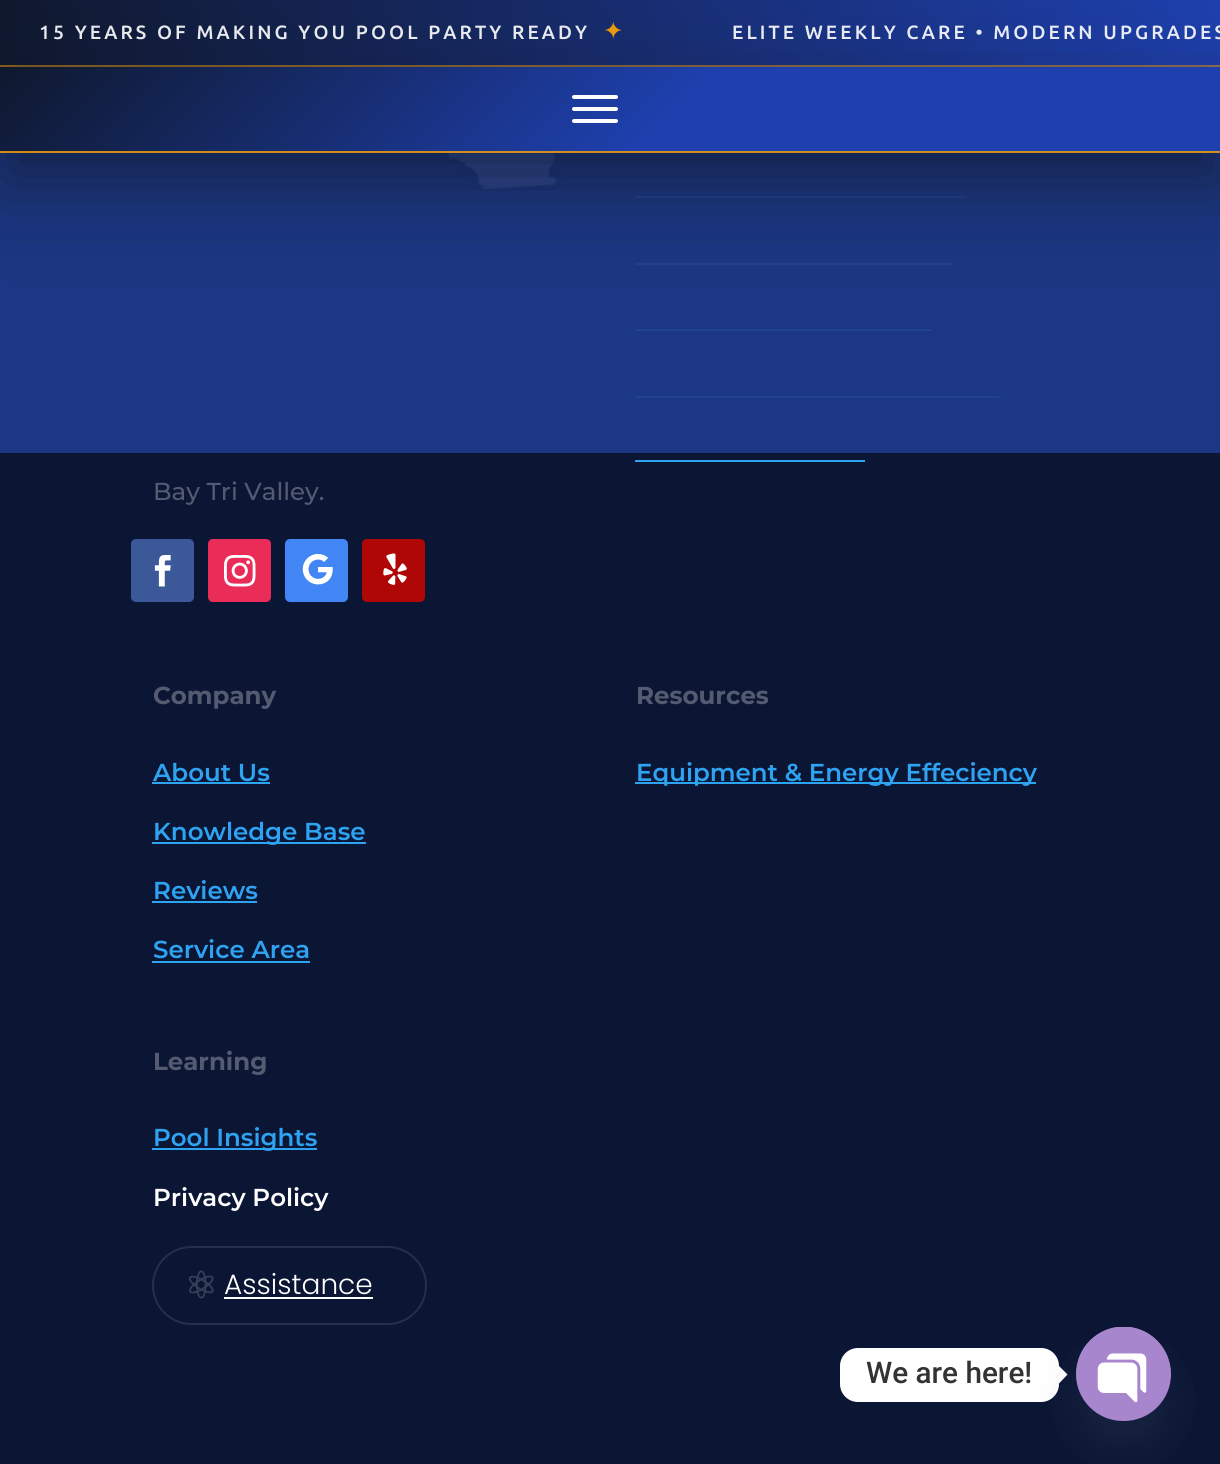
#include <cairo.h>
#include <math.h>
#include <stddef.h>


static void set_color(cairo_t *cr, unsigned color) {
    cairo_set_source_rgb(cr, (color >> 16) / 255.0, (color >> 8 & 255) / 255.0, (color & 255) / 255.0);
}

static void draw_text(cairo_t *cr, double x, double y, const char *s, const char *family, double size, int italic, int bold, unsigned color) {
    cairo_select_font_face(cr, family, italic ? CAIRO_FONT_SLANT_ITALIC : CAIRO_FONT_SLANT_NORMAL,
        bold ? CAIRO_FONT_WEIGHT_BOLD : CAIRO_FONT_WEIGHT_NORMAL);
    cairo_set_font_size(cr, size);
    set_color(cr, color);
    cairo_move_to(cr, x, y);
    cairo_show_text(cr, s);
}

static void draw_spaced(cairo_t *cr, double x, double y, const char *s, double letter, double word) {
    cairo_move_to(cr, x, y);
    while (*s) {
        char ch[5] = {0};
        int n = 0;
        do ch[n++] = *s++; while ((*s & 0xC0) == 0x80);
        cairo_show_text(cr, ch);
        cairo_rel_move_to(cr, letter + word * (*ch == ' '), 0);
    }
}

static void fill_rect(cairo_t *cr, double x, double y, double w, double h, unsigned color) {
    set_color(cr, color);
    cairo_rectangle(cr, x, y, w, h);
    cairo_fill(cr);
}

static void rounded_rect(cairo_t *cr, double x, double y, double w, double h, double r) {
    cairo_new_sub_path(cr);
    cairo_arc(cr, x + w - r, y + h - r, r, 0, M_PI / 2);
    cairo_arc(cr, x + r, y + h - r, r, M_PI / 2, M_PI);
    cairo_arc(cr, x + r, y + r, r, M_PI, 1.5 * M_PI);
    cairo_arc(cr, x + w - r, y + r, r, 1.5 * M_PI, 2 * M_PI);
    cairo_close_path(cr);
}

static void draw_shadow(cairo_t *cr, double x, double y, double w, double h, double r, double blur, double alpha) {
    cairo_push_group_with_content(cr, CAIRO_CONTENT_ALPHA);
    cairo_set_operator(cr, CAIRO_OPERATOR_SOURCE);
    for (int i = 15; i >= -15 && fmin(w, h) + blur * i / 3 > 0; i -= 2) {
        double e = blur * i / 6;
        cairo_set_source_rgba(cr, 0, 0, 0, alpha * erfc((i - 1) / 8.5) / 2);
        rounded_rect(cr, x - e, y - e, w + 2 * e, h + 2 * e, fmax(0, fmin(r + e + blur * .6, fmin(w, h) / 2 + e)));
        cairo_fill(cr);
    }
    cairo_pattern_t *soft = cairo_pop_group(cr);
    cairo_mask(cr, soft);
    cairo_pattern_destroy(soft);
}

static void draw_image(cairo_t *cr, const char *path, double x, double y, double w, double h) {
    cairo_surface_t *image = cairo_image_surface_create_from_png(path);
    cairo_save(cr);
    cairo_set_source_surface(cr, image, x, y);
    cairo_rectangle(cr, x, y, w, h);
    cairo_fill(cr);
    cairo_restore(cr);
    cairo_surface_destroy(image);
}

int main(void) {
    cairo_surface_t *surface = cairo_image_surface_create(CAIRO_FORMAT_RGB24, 1220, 1464);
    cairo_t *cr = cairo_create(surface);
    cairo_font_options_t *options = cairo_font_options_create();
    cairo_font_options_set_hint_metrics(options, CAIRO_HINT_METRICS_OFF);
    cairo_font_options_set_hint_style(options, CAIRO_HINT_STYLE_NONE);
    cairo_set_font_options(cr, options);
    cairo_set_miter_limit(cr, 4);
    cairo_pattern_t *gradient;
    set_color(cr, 0x0B1534);
    cairo_paint(cr);
    fill_rect(cr, 635, 196, 331, 2, 0x2EA3F2);
    fill_rect(cr, 635, 263, 317, 2, 0x2EA3F2);
    fill_rect(cr, 635, 329, 296, 2, 0x2EA3F2);
    fill_rect(cr, 635, 396, 364, 2, 0x2EA3F2);
    draw_image(cr, "assets/img1.png", 418, 152, 152, 45);
    cairo_set_source_rgba(cr, 0.118, 0.227, 0.541, 0.92);
    cairo_rectangle(cr, 0, 152, 1220, 301);
    cairo_fill(cr);
    gradient = cairo_pattern_create_linear(0, 32, 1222, 32);
    cairo_pattern_add_color_stop_rgba(gradient, 0, 0.063, 0.094, 0.18, 1);
    cairo_pattern_add_color_stop_rgba(gradient, 1, 0.118, 0.251, 0.682, 1);
    cairo_set_source(cr, gradient);
    cairo_pattern_destroy(gradient);
    cairo_rectangle(cr, 0, 0, 1220, 67);
    cairo_fill(cr);
    cairo_set_source_rgba(cr, 0.961, 0.62, 0.043, 0.55);
    cairo_rectangle(cr, 0, 65, 1220, 2);
    cairo_fill(cr);
    set_color(cr, 0x0F172A);
    draw_shadow(cr, 0, 98, 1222, 86, 0, 39.5, 0.65);
    gradient = cairo_pattern_create_linear(284, -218, 937, 435);
    cairo_pattern_add_color_stop_rgba(gradient, 0, 0.059, 0.094, 0.176, 1);
    cairo_pattern_add_color_stop_rgba(gradient, 0.55, 0.118, 0.251, 0.682, 1);
    cairo_pattern_add_color_stop_rgba(gradient, 1, 0.118, 0.251, 0.682, 1);
    cairo_set_source(cr, gradient);
    cairo_pattern_destroy(gradient);
    cairo_rectangle(cr, 0, 67, 1220, 84);
    cairo_fill(cr);
    gradient = cairo_pattern_create_linear(284, -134, 937, 519);
    cairo_pattern_add_color_stop_rgba(gradient, 0, 0.059, 0.094, 0.176, 1);
    cairo_pattern_add_color_stop_rgba(gradient, 0.55, 0.118, 0.251, 0.682, 1);
    cairo_pattern_add_color_stop_rgba(gradient, 1, 0.118, 0.251, 0.682, 1);
    cairo_set_source(cr, gradient);
    cairo_pattern_destroy(gradient);
    cairo_rectangle(cr, 0, 151, 1220, 1);
    cairo_fill(cr);
    cairo_set_source_rgba(cr, 0.961, 0.62, 0.043, 0.85);
    cairo_rectangle(cr, 0, 151, 1220, 2);
    cairo_fill(cr);
    set_color(cr, 0xFFFFFF);
    rounded_rect(cr, 572, 95, 46, 4, 2);
    cairo_fill(cr);
    rounded_rect(cr, 572, 107, 46, 4, 2);
    cairo_fill(cr);
    rounded_rect(cr, 572, 119, 46, 4, 2);
    cairo_fill(cr);
    cairo_select_font_face(cr, "Ubuntu Medium", CAIRO_FONT_SLANT_NORMAL, CAIRO_FONT_WEIGHT_NORMAL);
    cairo_set_font_size(cr, 19.25);
    set_color(cr, 0xE7E9ED);
    draw_spaced(cr, 39, 39, "15 YEARS OF MAKING YOU POOL PARTY READY", 3.1, 0);
    cairo_select_font_face(cr, "DejaVu Sans", CAIRO_FONT_SLANT_NORMAL, CAIRO_FONT_WEIGHT_NORMAL);
    cairo_set_font_size(cr, 24.5);
    set_color(cr, 0xEA9810);
    draw_spaced(cr, 603, 39, "✦", 3.1, 0);
    cairo_select_font_face(cr, "Ubuntu Medium", CAIRO_FONT_SLANT_NORMAL, CAIRO_FONT_WEIGHT_NORMAL);
    cairo_set_font_size(cr, 19.25);
    set_color(cr, 0xE8EBF4);
    draw_spaced(cr, 732, 39, "ELITE WEEKLY CARE • MODERN UPGRADES", 3.1, 0);
    fill_rect(cr, 635, 460, 230, 2, 0x2EA3F2);
    draw_text(cr, 153, 500, "Bay Tri Valley.", "Montserrat Medium", 24.5, 0, 0, 0x545B71);
    set_color(cr, 0x3B5998);
    rounded_rect(cr, 131, 539, 63, 63, 5);
    cairo_fill(cr);
    draw_image(cr, "assets/img2.png", 154, 555, 17, 32);
    set_color(cr, 0xEA2C59);
    rounded_rect(cr, 208, 539, 63, 63, 5);
    cairo_fill(cr);
    draw_image(cr, "assets/img3.png", 224, 555, 32, 32);
    set_color(cr, 0x4285F4);
    rounded_rect(cr, 285, 539, 63, 63, 5);
    cairo_fill(cr);
    draw_image(cr, "assets/img4.png", 302, 553, 31, 32);
    set_color(cr, 0xAF0606);
    rounded_rect(cr, 362, 539, 63, 63, 5);
    cairo_fill(cr);
    draw_image(cr, "assets/img5.png", 383, 553, 24, 32);
    draw_text(cr, 153, 704, "Company", "Montserrat", 24.5, 0, 1, 0x545B71);
    draw_text(cr, 153, 781, "About Us", "Montserrat SemiBold", 24.5, 0, 0, 0x2EA3F2);
    fill_rect(cr, 152, 782, 118, 2, 0x2EA3F2);
    fill_rect(cr, 152, 842, 214, 2, 0x2EA3F2);
    draw_text(cr, 153, 840, "Knowledge Base", "Montserrat SemiBold", 24.5, 0, 0, 0x2EA3F2);
    draw_text(cr, 153, 899, "Reviews", "Montserrat SemiBold", 24.5, 0, 0, 0x2EA3F2);
    fill_rect(cr, 152, 901, 105, 2, 0x2EA3F2);
    draw_text(cr, 153, 958, "Service Area", "Montserrat SemiBold", 24.5, 0, 0, 0x2EA3F2);
    fill_rect(cr, 152, 961, 158, 2, 0x2EA3F2);
    draw_text(cr, 636, 704, "Resources", "Montserrat", 24.5, 0, 1, 0x545B71);
    fill_rect(cr, 635, 782, 401, 2, 0x2EA3F2);
    draw_text(cr, 636, 781, "Equipment & Energy Effeciency", "Montserrat SemiBold", 24.5, 0, 0, 0x2EA3F2);
    draw_text(cr, 153, 1070, "Learning", "Montserrat", 24.5, 0, 1, 0x545B71);
    fill_rect(cr, 152, 1148, 165, 2, 0x2EA3F2);
    draw_text(cr, 153, 1146, "Pool Insights", "Montserrat SemiBold", 24.5, 0, 0, 0x2EA3F2);
    draw_text(cr, 153, 1206, "Privacy Policy", "Montserrat SemiBold", 24.5, 0, 0, 0xFFFFFF);
    rounded_rect(cr, 153, 1247, 273, 77, 38.5);
    set_color(cr, 0x262F4A);
    cairo_stroke(cr);
    draw_image(cr, "assets/img6.png", 189, 1270, 25, 29);
    draw_text(cr, 224, 1294, "Assistance", "Poppins Light", 28, 0, 0, 0xFFFFFF);
    fill_rect(cr, 224, 1297, 149, 2, 0xFFFFFF);
    rounded_rect(cr, 840, 1348, 219, 54, 18);
    cairo_fill(cr);
    draw_text(cr, 866, 1383, "We are here!", "Roboto Medium", 29.75, 0, 0, 0x333333);
    set_color(cr, 0xFFFFFF);
    cairo_new_path(cr);
    cairo_move_to(cr, 1059, 1383.5);
    cairo_line_to(cr, 1059, 1366);
    cairo_line_to(cr, 1067.5, 1374.5);
    cairo_close_path(cr);
    cairo_fill(cr);
    set_color(cr, 0x49687E);
    draw_shadow(cr, 1076, 1355, 95, 94, 47, 21, 0.16);
    set_color(cr, 0xA886CD);
    rounded_rect(cr, 1076, 1327, 95, 94, 47);
    cairo_fill(cr);
    draw_image(cr, "assets/img7.png", 1076, 1327, 95, 76);
    cairo_surface_write_to_png(surface, "output.png");
    cairo_font_options_destroy(options);
    cairo_destroy(cr);
    cairo_surface_destroy(surface);
    return 0;
}
